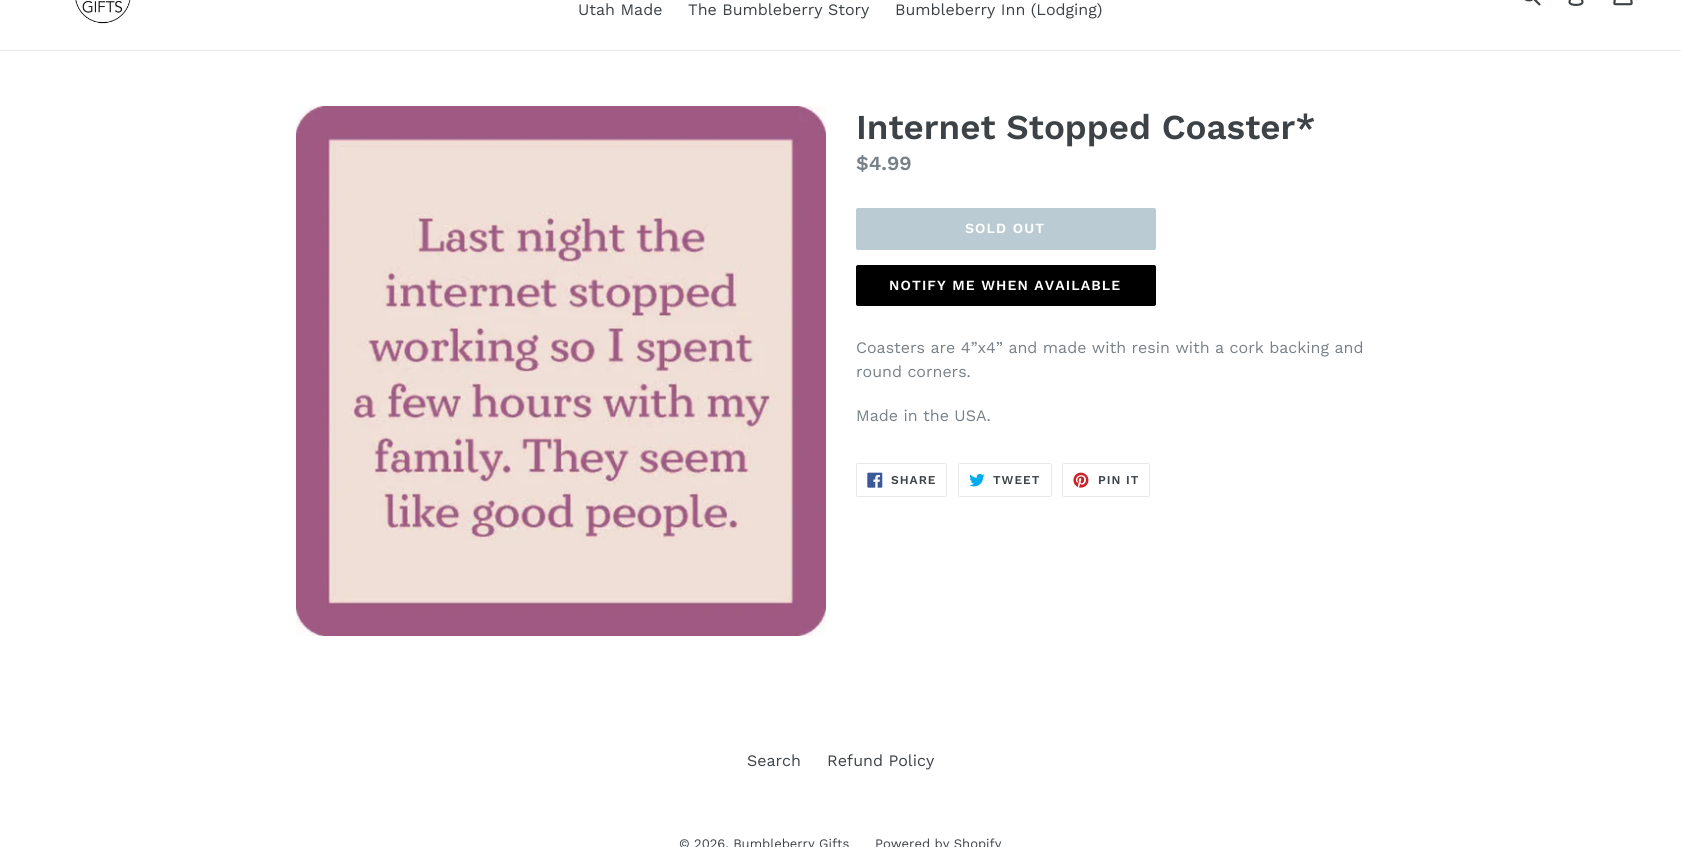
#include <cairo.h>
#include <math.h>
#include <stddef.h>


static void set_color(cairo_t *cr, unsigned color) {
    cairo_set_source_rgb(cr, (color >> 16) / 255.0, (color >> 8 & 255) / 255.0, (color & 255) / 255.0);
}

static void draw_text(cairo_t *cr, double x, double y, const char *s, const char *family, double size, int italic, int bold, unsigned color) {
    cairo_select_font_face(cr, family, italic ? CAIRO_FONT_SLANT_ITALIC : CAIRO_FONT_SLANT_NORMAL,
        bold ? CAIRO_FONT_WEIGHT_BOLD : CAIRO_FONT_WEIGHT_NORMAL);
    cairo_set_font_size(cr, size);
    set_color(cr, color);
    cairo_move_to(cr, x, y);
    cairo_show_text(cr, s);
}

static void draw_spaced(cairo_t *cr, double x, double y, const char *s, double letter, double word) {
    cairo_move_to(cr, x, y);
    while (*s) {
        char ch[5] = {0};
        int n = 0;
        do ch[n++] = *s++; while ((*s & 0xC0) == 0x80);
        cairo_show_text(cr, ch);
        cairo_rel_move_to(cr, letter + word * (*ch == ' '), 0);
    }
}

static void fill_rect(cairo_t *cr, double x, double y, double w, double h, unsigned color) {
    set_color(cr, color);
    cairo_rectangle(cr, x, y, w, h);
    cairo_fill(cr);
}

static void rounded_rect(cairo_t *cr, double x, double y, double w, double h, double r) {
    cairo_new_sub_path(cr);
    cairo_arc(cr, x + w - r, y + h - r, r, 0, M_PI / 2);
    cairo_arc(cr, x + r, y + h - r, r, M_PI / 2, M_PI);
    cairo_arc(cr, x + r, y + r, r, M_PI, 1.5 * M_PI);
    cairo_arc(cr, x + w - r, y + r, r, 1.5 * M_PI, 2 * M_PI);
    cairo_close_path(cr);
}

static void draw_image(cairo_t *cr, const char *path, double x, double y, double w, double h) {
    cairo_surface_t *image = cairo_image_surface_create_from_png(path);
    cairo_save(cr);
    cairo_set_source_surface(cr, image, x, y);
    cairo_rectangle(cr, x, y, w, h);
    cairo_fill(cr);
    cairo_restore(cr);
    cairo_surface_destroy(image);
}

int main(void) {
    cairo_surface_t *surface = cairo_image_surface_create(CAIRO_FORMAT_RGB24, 1681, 847);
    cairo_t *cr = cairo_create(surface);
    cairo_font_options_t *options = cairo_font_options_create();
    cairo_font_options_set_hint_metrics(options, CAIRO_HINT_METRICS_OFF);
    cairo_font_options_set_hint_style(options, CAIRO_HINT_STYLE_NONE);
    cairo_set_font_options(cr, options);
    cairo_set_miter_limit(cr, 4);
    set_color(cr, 0xFFFFFF);
    cairo_paint(cr);
    fill_rect(cr, 0, 50, 1681, 1, 0xE8E9EB);
    draw_image(cr, "assets/img1.png", 75, 0, 56, 24);
    draw_text(cr, 578, 15, "Utah Made", "Work Sans", 16, 0, 0, 0x3D4246);
    draw_text(cr, 688, 15, "The Bumbleberry Story", "Work Sans", 16, 0, 0, 0x3D4246);
    draw_text(cr, 895, 15, "Bumbleberry Inn (Lodging)", "Work Sans", 16, 0, 0, 0x3D4246);
    draw_image(cr, "assets/img2.png", 1524, 0, 17, 6);
    draw_image(cr, "assets/img3.png", 1568, 0, 16, 6);
    draw_image(cr, "assets/img4.png", 1613, 0, 20, 6);
    draw_image(cr, "assets/img5.png", 296, 106, 530, 530);
    draw_text(cr, 856, 139, "Internet Stopped Coaster*", "Work Sans SemiBold", 35, 0, 0, 0x3D4246);
    draw_text(cr, 856, 170, "$4.99", "Work Sans SemiBold", 20, 0, 0, 0x788188);
    set_color(cr, 0xBBCBD4);
    rounded_rect(cr, 856, 208, 300, 42, 2);
    cairo_fill(cr);
    cairo_set_font_size(cr, 14);
    set_color(cr, 0xFFFFFF);
    draw_spaced(cr, 965, 233, "SOLD OUT", 1.1, 0);
    set_color(cr, 0x000000);
    rounded_rect(cr, 856, 265, 300, 41, 2);
    cairo_fill(cr);
    set_color(cr, 0xFFFFFF);
    draw_spaced(cr, 889, 290, "NOTIFY ME WHEN AVAILABLE", 1.1, 0);
    draw_text(cr, 856, 353, "Coasters are 4”x4” and made with resin with a cork backing and", "Work Sans", 16, 0, 0, 0x788188);
    draw_text(cr, 856, 377, "round corners.", "Work Sans", 16, 0, 0, 0x788188);
    draw_text(cr, 856, 421, "Made in the USA.", "Work Sans", 16, 0, 0, 0x788188);
    rounded_rect(cr, 856.5, 463.5, 90, 33, 1.5);
    set_color(cr, 0xE8E9EB);
    cairo_set_line_width(cr, 1);
    cairo_stroke(cr);
    draw_image(cr, "assets/img6.png", 867, 472, 16, 16);
    cairo_select_font_face(cr, "Work Sans SemiBold", CAIRO_FONT_SLANT_NORMAL, CAIRO_FONT_WEIGHT_NORMAL);
    cairo_set_font_size(cr, 12);
    set_color(cr, 0x3D4246);
    draw_spaced(cr, 891, 484, "SHARE", 1, 0);
    rounded_rect(cr, 958.5, 463.5, 93, 33, 1.5);
    set_color(cr, 0xE8E9EB);
    cairo_stroke(cr);
    draw_image(cr, "assets/img7.png", 969, 473, 16, 14);
    set_color(cr, 0x3D4246);
    draw_spaced(cr, 993, 484, "TWEET", 1, 0);
    rounded_rect(cr, 1062.5, 463.5, 87, 33, 1.5);
    set_color(cr, 0xE8E9EB);
    cairo_stroke(cr);
    draw_image(cr, "assets/img8.png", 1073, 472, 16, 16);
    set_color(cr, 0x3D4246);
    draw_spaced(cr, 1098, 484, "PIN IT", 1, 0);
    draw_text(cr, 747, 766, "Search", "Work Sans", 16, 0, 0, 0x3D4246);
    draw_text(cr, 827, 766, "Refund Policy", "Work Sans", 16, 0, 0, 0x3D4246);
    draw_text(cr, 679, 848, "© 2026, Bumbleberry Gifts", "Work Sans", 13, 0, 0, 0x3D4246);
    draw_text(cr, 875, 848, "Powered by Shopify", "Work Sans", 13, 0, 0, 0x3D4246);
    cairo_surface_write_to_png(surface, "output.png");
    cairo_font_options_destroy(options);
    cairo_destroy(cr);
    cairo_surface_destroy(surface);
    return 0;
}
